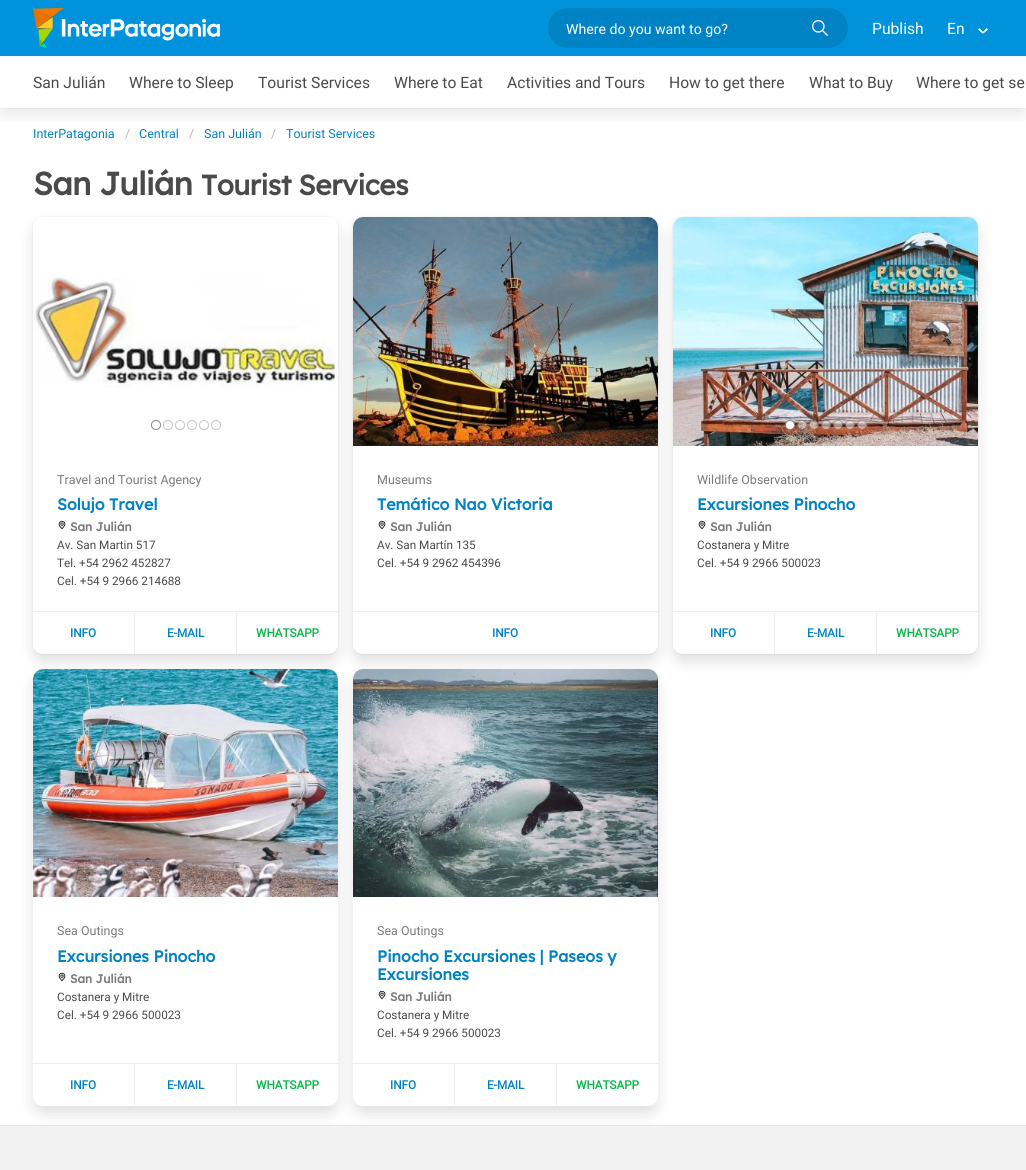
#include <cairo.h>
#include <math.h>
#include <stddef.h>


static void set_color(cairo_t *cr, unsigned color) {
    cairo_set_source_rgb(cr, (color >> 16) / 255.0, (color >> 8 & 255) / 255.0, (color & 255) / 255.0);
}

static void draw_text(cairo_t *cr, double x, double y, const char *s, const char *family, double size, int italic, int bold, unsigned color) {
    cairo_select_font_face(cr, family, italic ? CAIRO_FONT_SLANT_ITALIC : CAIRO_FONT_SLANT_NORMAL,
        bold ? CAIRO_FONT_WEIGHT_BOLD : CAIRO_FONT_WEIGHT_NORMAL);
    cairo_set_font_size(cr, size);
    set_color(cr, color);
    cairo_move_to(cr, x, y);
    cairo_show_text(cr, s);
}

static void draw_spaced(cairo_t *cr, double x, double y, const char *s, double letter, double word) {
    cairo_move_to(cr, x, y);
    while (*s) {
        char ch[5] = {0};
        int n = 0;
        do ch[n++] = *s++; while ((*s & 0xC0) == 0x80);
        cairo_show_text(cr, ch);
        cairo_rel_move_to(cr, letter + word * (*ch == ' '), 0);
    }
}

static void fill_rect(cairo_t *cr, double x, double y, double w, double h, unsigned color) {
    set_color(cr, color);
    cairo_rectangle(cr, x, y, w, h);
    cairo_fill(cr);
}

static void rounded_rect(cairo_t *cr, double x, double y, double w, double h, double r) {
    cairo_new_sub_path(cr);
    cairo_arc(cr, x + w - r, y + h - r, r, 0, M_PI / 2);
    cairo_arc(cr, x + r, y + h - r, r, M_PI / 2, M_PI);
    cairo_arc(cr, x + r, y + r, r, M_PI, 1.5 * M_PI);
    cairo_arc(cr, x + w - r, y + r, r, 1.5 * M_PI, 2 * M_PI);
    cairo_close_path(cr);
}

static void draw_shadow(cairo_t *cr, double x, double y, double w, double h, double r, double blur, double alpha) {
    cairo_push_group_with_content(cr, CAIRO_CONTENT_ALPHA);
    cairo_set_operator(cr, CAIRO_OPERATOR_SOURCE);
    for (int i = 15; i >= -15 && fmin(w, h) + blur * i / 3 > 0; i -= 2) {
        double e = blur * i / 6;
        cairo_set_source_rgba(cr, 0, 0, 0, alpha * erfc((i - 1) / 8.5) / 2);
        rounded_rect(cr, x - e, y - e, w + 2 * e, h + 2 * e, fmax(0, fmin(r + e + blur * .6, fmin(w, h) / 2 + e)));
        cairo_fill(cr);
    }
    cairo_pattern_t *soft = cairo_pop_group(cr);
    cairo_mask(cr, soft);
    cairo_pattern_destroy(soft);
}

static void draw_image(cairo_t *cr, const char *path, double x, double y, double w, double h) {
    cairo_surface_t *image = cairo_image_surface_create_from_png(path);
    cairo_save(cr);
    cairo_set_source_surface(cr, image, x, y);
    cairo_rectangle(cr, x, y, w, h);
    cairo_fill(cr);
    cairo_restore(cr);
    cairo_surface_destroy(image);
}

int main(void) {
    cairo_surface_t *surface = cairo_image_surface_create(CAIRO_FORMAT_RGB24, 1026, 1170);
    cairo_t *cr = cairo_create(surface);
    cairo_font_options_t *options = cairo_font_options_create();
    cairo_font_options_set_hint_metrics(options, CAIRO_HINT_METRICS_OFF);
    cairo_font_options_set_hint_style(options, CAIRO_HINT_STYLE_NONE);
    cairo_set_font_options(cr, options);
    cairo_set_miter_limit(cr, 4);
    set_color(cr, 0xFFFFFF);
    cairo_paint(cr);
    cairo_rectangle(cr, -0.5, 55.5, 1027, 53);
    set_color(cr, 0xFAFAFA);
    cairo_set_line_width(cr, 1);
    cairo_stroke(cr);
    cairo_save(cr);
    cairo_rectangle(cr, 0, 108, 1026, 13);
    cairo_clip(cr);
    set_color(cr, 0x0A0A0A);
    draw_shadow(cr, 2, 66, 1022, 48, 0, 8, 0.1);
    cairo_restore(cr);
    fill_rect(cr, 0, 0, 1026, 56, 0x0092DB);
    draw_image(cr, "assets/img1.png", 33, 8, 187, 40);
    set_color(cr, 0x0083C5);
    rounded_rect(cr, 548, 8, 300, 40, 20);
    cairo_fill(cr);
    draw_text(cr, 566, 34, "Where do you want to go?", "Roboto", 14.4, 0, 0, 0xFFFFFF);
    draw_image(cr, "assets/img2.png", 812, 20, 16, 16);
    draw_text(cr, 872, 34, "Publish", "Roboto", 16, 0, 0, 0xFFFFFF);
    draw_text(cr, 947, 34, "En", "Roboto", 16, 0, 0, 0xFFFFFF);
    cairo_new_path(cr);
    cairo_move_to(cr, 982.5, 32.5);
    cairo_line_to(cr, 986.5, 28);
    cairo_line_to(cr, 988, 29.5);
    cairo_line_to(cr, 983.5, 33.5);
    cairo_close_path(cr);
    cairo_fill(cr);
    cairo_new_path(cr);
    cairo_move_to(cr, 978, 29.5);
    cairo_line_to(cr, 979.5, 28);
    cairo_line_to(cr, 983.5, 32.5);
    cairo_line_to(cr, 982.5, 33.5);
    cairo_close_path(cr);
    cairo_fill(cr);
    draw_text(cr, 33, 88, "San Julián", "Roboto", 16, 0, 0, 0x4A4A4A);
    draw_text(cr, 129, 88, "Where to Sleep", "Roboto", 16, 0, 0, 0x4A4A4A);
    draw_text(cr, 258, 88, "Tourist Services", "Roboto", 16, 0, 0, 0x4A4A4A);
    draw_text(cr, 394, 88, "Where to Eat", "Roboto", 16, 0, 0, 0x4A4A4A);
    draw_text(cr, 507, 88, "Activities and Tours", "Roboto", 16, 0, 0, 0x4A4A4A);
    draw_text(cr, 669, 88, "How to get there", "Roboto", 16, 0, 0, 0x4A4A4A);
    draw_text(cr, 809, 88, "What to Buy", "Roboto", 16, 0, 0, 0x4A4A4A);
    draw_text(cr, 916, 88, "Where to get se", "Roboto", 16, 0, 0, 0x4A4A4A);
    draw_text(cr, 33, 138, "InterPatagonia", "Roboto", 12.75, 0, 0, 0x0183C3);
    draw_text(cr, 125, 138, "/", "Roboto", 12.75, 0, 0, 0xB5B5B5);
    draw_text(cr, 139, 138, "Central", "Roboto", 12.75, 0, 0, 0x0183C3);
    draw_text(cr, 189, 138, "/", "Roboto", 12.75, 0, 0, 0xB5B5B5);
    draw_text(cr, 204, 138, "San Julián", "Roboto", 12.75, 0, 0, 0x0183C3);
    draw_text(cr, 271, 138, "/", "Roboto", 12.75, 0, 0, 0xB5B5B5);
    draw_text(cr, 286, 138, "Tourist Services", "Roboto", 12.75, 0, 0, 0x0183C3);
    cairo_select_font_face(cr, "Lexend Deca", CAIRO_FONT_SLANT_NORMAL, CAIRO_FONT_WEIGHT_BOLD);
    cairo_set_font_size(cr, 32);
    set_color(cr, 0x4A4A4A);
    draw_spaced(cr, 33, 195, "San Julián", -0.5, 0);
    cairo_set_font_size(cr, 28);
    draw_spaced(cr, 201, 195, "Tourist Services", -0.5, 0);
    rounded_rect(cr, 32.5, 216.5, 306, 438, 10.5);
    set_color(cr, 0xF9F9F9);
    cairo_stroke(cr);
    set_color(cr, 0x0A0A0A);
    draw_shadow(cr, 35, 227, 301, 433, 8, 8, 0.15);
    set_color(cr, 0xFFFFFF);
    rounded_rect(cr, 33, 217, 305, 437, 10);
    cairo_fill(cr);
    draw_image(cr, "assets/img3.png", 33, 277, 305, 111);
    cairo_arc(cr, 156, 425, 4.5, 0, 2 * M_PI);
    set_color(cr, 0x888888);
    cairo_stroke(cr);
    cairo_arc(cr, 168, 425, 4.5, 0, 2 * M_PI);
    set_color(cr, 0xC4C4C4);
    cairo_stroke(cr);
    cairo_arc(cr, 180, 425, 4.5, 0, 2 * M_PI);
    cairo_stroke(cr);
    cairo_arc(cr, 192, 425, 4.5, 0, 2 * M_PI);
    cairo_stroke(cr);
    cairo_arc(cr, 204, 425, 4.5, 0, 2 * M_PI);
    cairo_stroke(cr);
    cairo_arc(cr, 216, 425, 4.5, 0, 2 * M_PI);
    cairo_stroke(cr);
    draw_text(cr, 57, 484, "Travel and Tourist Agency", "Roboto", 12.75, 0, 0, 0x7A7A7A);
    draw_text(cr, 57, 510, "Solujo Travel", "Lexend Deca", 16, 0, 1, 0x0183C3);
    draw_image(cr, "assets/img4.png", 58, 520, 8, 10);
    draw_text(cr, 70, 531, "San Julián", "Lexend Deca", 12, 0, 1, 0x7A7A7A);
    draw_text(cr, 57, 549, "Av. San Martin 517", "Roboto", 12, 0, 0, 0x4A4A4A);
    draw_text(cr, 57, 567, "Tel. +54 2962 452827", "Roboto", 12, 0, 0, 0x4A4A4A);
    draw_text(cr, 57, 585, "Cel. +54 9 2966 214688", "Roboto", 12, 0, 0, 0x4A4A4A);
    fill_rect(cr, 33, 611, 305, 1, 0xEDEDED);
    fill_rect(cr, 134, 612, 1, 42, 0xEDEDED);
    draw_text(cr, 70, 637, "INFO", "Roboto", 12, 0, 1, 0x0183C3);
    fill_rect(cr, 236, 612, 1, 42, 0xEDEDED);
    draw_text(cr, 167, 637, "E-MAIL", "Roboto", 12, 0, 1, 0x0183C3);
    draw_text(cr, 256, 637, "WHATSAPP", "Roboto", 12, 0, 1, 0x09B74A);
    rounded_rect(cr, 352.5, 216.5, 306, 438, 10.5);
    set_color(cr, 0xF9F9F9);
    cairo_stroke(cr);
    set_color(cr, 0x0A0A0A);
    draw_shadow(cr, 355, 227, 301, 433, 8, 8, 0.15);
    set_color(cr, 0xFFFFFF);
    rounded_rect(cr, 353, 217, 305, 437, 10);
    cairo_fill(cr);
    draw_image(cr, "assets/img5.png", 353, 217, 305, 229);
    draw_text(cr, 377, 484, "Museums", "Roboto", 12.75, 0, 0, 0x7A7A7A);
    draw_text(cr, 377, 510, "Temático Nao Victoria", "Lexend Deca", 16, 0, 1, 0x0183C3);
    draw_image(cr, "assets/img4.png", 378, 520, 8, 10);
    draw_text(cr, 390, 531, "San Julián", "Lexend Deca", 12, 0, 1, 0x7A7A7A);
    draw_text(cr, 377, 549, "Av. San Martín 135", "Roboto", 12, 0, 0, 0x4A4A4A);
    draw_text(cr, 377, 567, "Cel. +54 9 2962 454396", "Roboto", 12, 0, 0, 0x4A4A4A);
    fill_rect(cr, 353, 611, 305, 1, 0xEDEDED);
    draw_text(cr, 492, 637, "INFO", "Roboto", 12, 0, 1, 0x0183C3);
    rounded_rect(cr, 672.5, 216.5, 306, 438, 10.5);
    set_color(cr, 0xF9F9F9);
    cairo_stroke(cr);
    set_color(cr, 0x0A0A0A);
    draw_shadow(cr, 675, 227, 301, 433, 8, 8, 0.15);
    set_color(cr, 0xFFFFFF);
    rounded_rect(cr, 673, 217, 305, 437, 10);
    cairo_fill(cr);
    draw_image(cr, "assets/img6.png", 673, 217, 305, 229);
    cairo_arc(cr, 790, 425, 4.5, 0, 2 * M_PI);
    cairo_fill_preserve(cr);
    set_color(cr, 0x888888);
    cairo_stroke(cr);
    cairo_set_source_rgba(cr, 1, 1, 1, 0.5);
    cairo_arc(cr, 802, 425, 4, 0, 2 * M_PI);
    cairo_fill(cr);
    cairo_arc(cr, 802, 425, 4.5, 0, 2 * M_PI);
    cairo_set_source_rgba(cr, 0.533, 0.533, 0.533, 0.5);
    cairo_stroke(cr);
    cairo_set_source_rgba(cr, 1, 1, 1, 0.5);
    cairo_arc(cr, 814, 425, 4, 0, 2 * M_PI);
    cairo_fill(cr);
    cairo_arc(cr, 814, 425, 4.5, 0, 2 * M_PI);
    cairo_set_source_rgba(cr, 0.533, 0.533, 0.533, 0.5);
    cairo_stroke(cr);
    cairo_set_source_rgba(cr, 1, 1, 1, 0.5);
    cairo_arc(cr, 826, 425, 4, 0, 2 * M_PI);
    cairo_fill(cr);
    cairo_arc(cr, 826, 425, 4.5, 0, 2 * M_PI);
    cairo_set_source_rgba(cr, 0.533, 0.533, 0.533, 0.5);
    cairo_stroke(cr);
    cairo_set_source_rgba(cr, 1, 1, 1, 0.5);
    cairo_arc(cr, 838, 425, 4, 0, 2 * M_PI);
    cairo_fill(cr);
    cairo_arc(cr, 838, 425, 4.5, 0, 2 * M_PI);
    cairo_set_source_rgba(cr, 0.533, 0.533, 0.533, 0.5);
    cairo_stroke(cr);
    cairo_set_source_rgba(cr, 1, 1, 1, 0.5);
    cairo_arc(cr, 850, 425, 4, 0, 2 * M_PI);
    cairo_fill(cr);
    cairo_arc(cr, 850, 425, 4.5, 0, 2 * M_PI);
    cairo_set_source_rgba(cr, 0.533, 0.533, 0.533, 0.5);
    cairo_stroke(cr);
    cairo_set_source_rgba(cr, 1, 1, 1, 0.5);
    cairo_arc(cr, 862, 425, 4, 0, 2 * M_PI);
    cairo_fill(cr);
    cairo_arc(cr, 862, 425, 4.5, 0, 2 * M_PI);
    cairo_set_source_rgba(cr, 0.533, 0.533, 0.533, 0.5);
    cairo_stroke(cr);
    draw_text(cr, 697, 484, "Wildlife Observation", "Roboto", 12.75, 0, 0, 0x7A7A7A);
    draw_text(cr, 697, 510, "Excursiones Pinocho", "Lexend Deca", 16, 0, 1, 0x0183C3);
    draw_image(cr, "assets/img4.png", 698, 520, 8, 10);
    draw_text(cr, 710, 531, "San Julián", "Lexend Deca", 12, 0, 1, 0x7A7A7A);
    draw_text(cr, 697, 549, "Costanera y Mitre", "Roboto", 12, 0, 0, 0x4A4A4A);
    draw_text(cr, 697, 567, "Cel. +54 9 2966 500023", "Roboto", 12, 0, 0, 0x4A4A4A);
    fill_rect(cr, 673, 611, 305, 1, 0xEDEDED);
    fill_rect(cr, 774, 612, 1, 42, 0xEDEDED);
    draw_text(cr, 710, 637, "INFO", "Roboto", 12, 0, 1, 0x0183C3);
    fill_rect(cr, 876, 612, 1, 42, 0xEDEDED);
    draw_text(cr, 807, 637, "E-MAIL", "Roboto", 12, 0, 1, 0x0183C3);
    draw_text(cr, 896, 637, "WHATSAPP", "Roboto", 12, 0, 1, 0x09B74A);
    cairo_rectangle(cr, -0.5, 1125.5, 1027, 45);
    set_color(cr, 0xE7E7E7);
    cairo_stroke(cr);
    fill_rect(cr, 0, 1126, 1026, 44, 0xF2F2F2);
    set_color(cr, 0x0A0A0A);
    draw_shadow(cr, 35, 679, 301, 433, 8, 8, 0.15);
    set_color(cr, 0xFFFFFF);
    rounded_rect(cr, 33, 669, 305, 437, 10);
    cairo_fill(cr);
    draw_image(cr, "assets/img7.png", 33, 669, 305, 228);
    draw_text(cr, 57, 935, "Sea Outings", "Roboto", 12.75, 0, 0, 0x7A7A7A);
    draw_text(cr, 57, 962, "Excursiones Pinocho", "Lexend Deca", 16, 0, 1, 0x0183C3);
    draw_image(cr, "assets/img4.png", 58, 972, 8, 10);
    draw_text(cr, 70, 983, "San Julián", "Lexend Deca", 12, 0, 1, 0x7A7A7A);
    draw_text(cr, 57, 1001, "Costanera y Mitre", "Roboto", 12, 0, 0, 0x4A4A4A);
    draw_text(cr, 57, 1019, "Cel. +54 9 2966 500023", "Roboto", 12, 0, 0, 0x4A4A4A);
    fill_rect(cr, 33, 1063, 305, 1, 0xEDEDED);
    fill_rect(cr, 134, 1064, 1, 42, 0xEDEDED);
    draw_text(cr, 70, 1089, "INFO", "Roboto", 12, 0, 1, 0x0183C3);
    fill_rect(cr, 236, 1064, 1, 42, 0xEDEDED);
    draw_text(cr, 167, 1089, "E-MAIL", "Roboto", 12, 0, 1, 0x0183C3);
    draw_text(cr, 256, 1089, "WHATSAPP", "Roboto", 12, 0, 1, 0x09B74A);
    set_color(cr, 0x0A0A0A);
    draw_shadow(cr, 355, 679, 301, 433, 8, 8, 0.15);
    set_color(cr, 0xFFFFFF);
    rounded_rect(cr, 353, 669, 305, 437, 10);
    cairo_fill(cr);
    draw_image(cr, "assets/img8.png", 353, 669, 305, 228);
    draw_text(cr, 377, 935, "Sea Outings", "Roboto", 12.75, 0, 0, 0x7A7A7A);
    draw_text(cr, 377, 962, "Pinocho Excursiones | Paseos y", "Lexend Deca", 16, 0, 1, 0x0183C3);
    draw_text(cr, 377, 980, "Excursiones", "Lexend Deca", 16, 0, 1, 0x0183C3);
    draw_image(cr, "assets/img4.png", 378, 990, 8, 10);
    draw_text(cr, 390, 1001, "San Julián", "Lexend Deca", 12, 0, 1, 0x7A7A7A);
    draw_text(cr, 377, 1019, "Costanera y Mitre", "Roboto", 12, 0, 0, 0x4A4A4A);
    draw_text(cr, 377, 1037, "Cel. +54 9 2966 500023", "Roboto", 12, 0, 0, 0x4A4A4A);
    fill_rect(cr, 353, 1063, 305, 1, 0xEDEDED);
    fill_rect(cr, 454, 1064, 1, 42, 0xEDEDED);
    draw_text(cr, 390, 1089, "INFO", "Roboto", 12, 0, 1, 0x0183C3);
    fill_rect(cr, 556, 1064, 1, 42, 0xEDEDED);
    draw_text(cr, 487, 1089, "E-MAIL", "Roboto", 12, 0, 1, 0x0183C3);
    draw_text(cr, 576, 1089, "WHATSAPP", "Roboto", 12, 0, 1, 0x09B74A);
    cairo_surface_write_to_png(surface, "output.png");
    cairo_font_options_destroy(options);
    cairo_destroy(cr);
    cairo_surface_destroy(surface);
    return 0;
}
